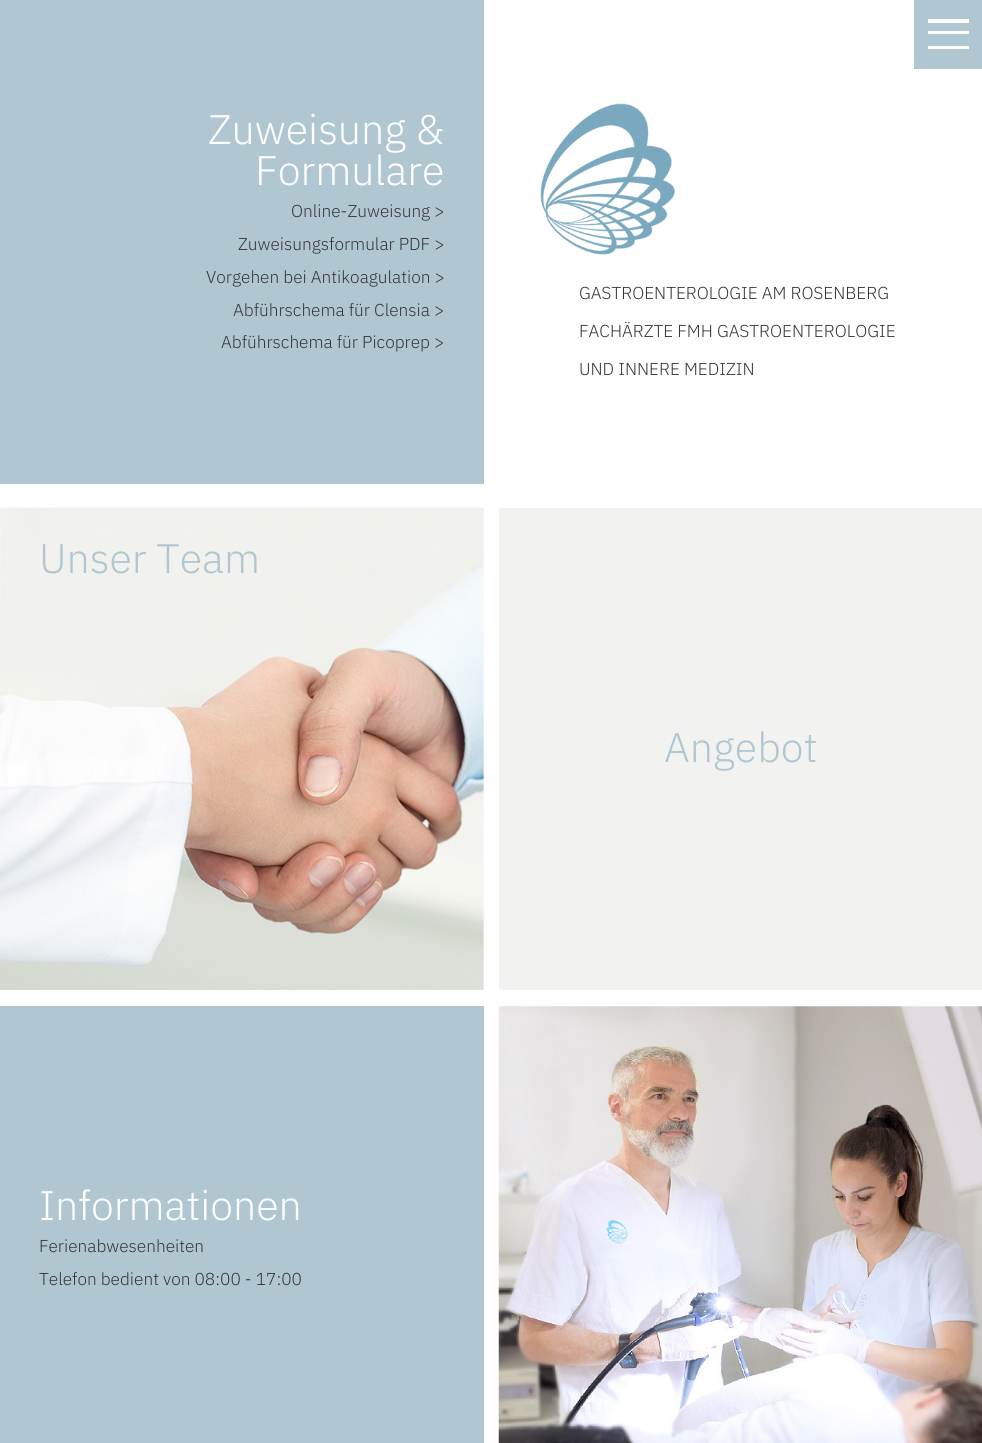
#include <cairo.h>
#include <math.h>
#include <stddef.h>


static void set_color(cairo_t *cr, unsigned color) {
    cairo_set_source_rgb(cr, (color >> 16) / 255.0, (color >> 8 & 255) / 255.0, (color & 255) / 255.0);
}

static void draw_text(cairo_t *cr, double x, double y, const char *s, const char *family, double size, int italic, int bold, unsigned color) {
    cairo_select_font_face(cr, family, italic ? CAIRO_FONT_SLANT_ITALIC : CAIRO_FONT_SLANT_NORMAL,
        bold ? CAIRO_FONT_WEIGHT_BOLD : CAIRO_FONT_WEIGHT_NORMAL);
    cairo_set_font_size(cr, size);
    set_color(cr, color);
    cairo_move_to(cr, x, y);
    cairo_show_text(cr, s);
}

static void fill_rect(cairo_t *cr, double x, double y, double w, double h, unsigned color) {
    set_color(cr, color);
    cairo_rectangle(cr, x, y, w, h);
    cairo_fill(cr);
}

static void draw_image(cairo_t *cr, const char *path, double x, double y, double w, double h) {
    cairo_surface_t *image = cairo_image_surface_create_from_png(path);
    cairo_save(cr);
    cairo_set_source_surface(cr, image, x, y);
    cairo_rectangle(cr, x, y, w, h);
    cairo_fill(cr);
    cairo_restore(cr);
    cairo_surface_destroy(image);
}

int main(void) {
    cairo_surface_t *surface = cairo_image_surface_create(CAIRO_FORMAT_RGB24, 982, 1443);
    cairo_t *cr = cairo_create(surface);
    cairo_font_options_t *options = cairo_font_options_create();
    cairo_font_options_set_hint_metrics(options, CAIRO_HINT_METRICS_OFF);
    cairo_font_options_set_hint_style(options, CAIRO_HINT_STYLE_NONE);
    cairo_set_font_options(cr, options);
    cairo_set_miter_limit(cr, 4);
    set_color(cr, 0xFFFFFF);
    cairo_paint(cr);
    fill_rect(cr, 914, 0, 68, 69, 0xB0C7D2);
    fill_rect(cr, 928, 19, 41, 4, 0xFFFFFF);
    fill_rect(cr, 928, 31, 41, 3, 0xFFFFFF);
    fill_rect(cr, 928, 46, 41, 3, 0xFFFFFF);
    fill_rect(cr, 0, 0, 484, 484, 0xB0C7D2);
    draw_text(cr, 208, 144, "Zuweisung &", "IBM Plex Sans Light", 41.25, 0, 0, 0xFFFFFF);
    draw_text(cr, 255, 185, "Formulare", "IBM Plex Sans Light", 41.25, 0, 0, 0xFFFFFF);
    draw_text(cr, 291, 217, "Online-Zuweisung >", "IBM Plex Sans Light", 17.25, 0, 0, 0x363636);
    draw_text(cr, 238, 250, "Zuweisungsformular PDF >", "IBM Plex Sans Light", 17.25, 0, 0, 0x363636);
    draw_text(cr, 206, 283, "Vorgehen bei Antikoagulation >", "IBM Plex Sans Light", 17.25, 0, 0, 0x363636);
    draw_text(cr, 233, 316, "Abführschema für Clensia >", "IBM Plex Sans Light", 17.25, 0, 0, 0x363636);
    draw_text(cr, 221, 348, "Abführschema für Picoprep >", "IBM Plex Sans Light", 17.25, 0, 0, 0x363636);
    draw_image(cr, "assets/img1.png", 540, 103, 135, 152);
    draw_text(cr, 579, 299, "GASTROENTEROLOGIE AM ROSENBERG", "IBM Plex Sans Light", 17.25, 0, 0, 0x363636);
    draw_text(cr, 579, 337, "FACHÄRZTE FMH GASTROENTEROLOGIE", "IBM Plex Sans Light", 17.25, 0, 0, 0x363636);
    draw_text(cr, 579, 375, "UND INNERE MEDIZIN", "IBM Plex Sans Light", 17.25, 0, 0, 0x363636);
    draw_image(cr, "assets/img2.png", 0, 507, 484, 483);
    draw_text(cr, 39, 573, "Unser Team", "IBM Plex Sans Light", 41.25, 0, 0, 0xB0C7D2);
    fill_rect(cr, 499, 508, 483, 482, 0xF2F3F0);
    draw_text(cr, 664, 762, "Angebot", "IBM Plex Sans Light", 41.25, 0, 0, 0xB0C7D2);
    fill_rect(cr, 0, 1006, 484, 437, 0xB0C7D2);
    draw_text(cr, 39, 1220, "Informationen", "IBM Plex Sans Light", 41.25, 0, 0, 0xFFFFFF);
    draw_text(cr, 39, 1252, "Ferienabwesenheiten", "IBM Plex Sans Light", 17.25, 0, 0, 0x363636);
    draw_text(cr, 39, 1285, "Telefon bedient von 08:00 - 17:00", "IBM Plex Sans Light", 17.25, 0, 0, 0x363636);
    draw_image(cr, "assets/img3.png", 498, 1006, 484, 437);
    cairo_surface_write_to_png(surface, "output.png");
    cairo_font_options_destroy(options);
    cairo_destroy(cr);
    cairo_surface_destroy(surface);
    return 0;
}
